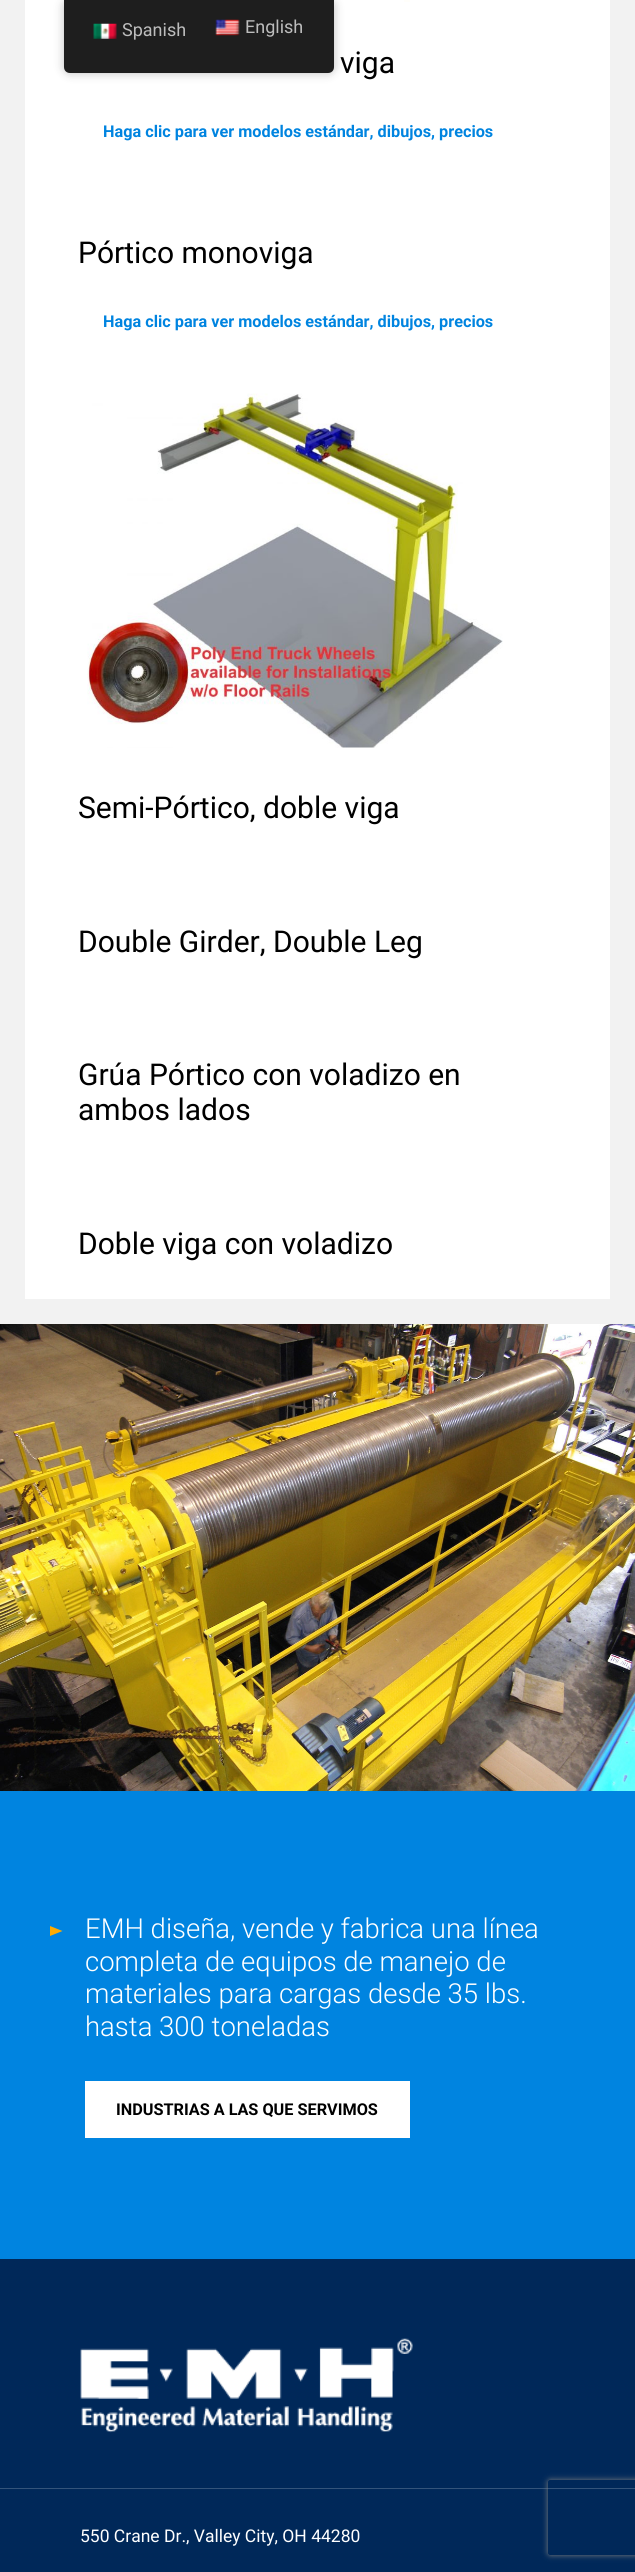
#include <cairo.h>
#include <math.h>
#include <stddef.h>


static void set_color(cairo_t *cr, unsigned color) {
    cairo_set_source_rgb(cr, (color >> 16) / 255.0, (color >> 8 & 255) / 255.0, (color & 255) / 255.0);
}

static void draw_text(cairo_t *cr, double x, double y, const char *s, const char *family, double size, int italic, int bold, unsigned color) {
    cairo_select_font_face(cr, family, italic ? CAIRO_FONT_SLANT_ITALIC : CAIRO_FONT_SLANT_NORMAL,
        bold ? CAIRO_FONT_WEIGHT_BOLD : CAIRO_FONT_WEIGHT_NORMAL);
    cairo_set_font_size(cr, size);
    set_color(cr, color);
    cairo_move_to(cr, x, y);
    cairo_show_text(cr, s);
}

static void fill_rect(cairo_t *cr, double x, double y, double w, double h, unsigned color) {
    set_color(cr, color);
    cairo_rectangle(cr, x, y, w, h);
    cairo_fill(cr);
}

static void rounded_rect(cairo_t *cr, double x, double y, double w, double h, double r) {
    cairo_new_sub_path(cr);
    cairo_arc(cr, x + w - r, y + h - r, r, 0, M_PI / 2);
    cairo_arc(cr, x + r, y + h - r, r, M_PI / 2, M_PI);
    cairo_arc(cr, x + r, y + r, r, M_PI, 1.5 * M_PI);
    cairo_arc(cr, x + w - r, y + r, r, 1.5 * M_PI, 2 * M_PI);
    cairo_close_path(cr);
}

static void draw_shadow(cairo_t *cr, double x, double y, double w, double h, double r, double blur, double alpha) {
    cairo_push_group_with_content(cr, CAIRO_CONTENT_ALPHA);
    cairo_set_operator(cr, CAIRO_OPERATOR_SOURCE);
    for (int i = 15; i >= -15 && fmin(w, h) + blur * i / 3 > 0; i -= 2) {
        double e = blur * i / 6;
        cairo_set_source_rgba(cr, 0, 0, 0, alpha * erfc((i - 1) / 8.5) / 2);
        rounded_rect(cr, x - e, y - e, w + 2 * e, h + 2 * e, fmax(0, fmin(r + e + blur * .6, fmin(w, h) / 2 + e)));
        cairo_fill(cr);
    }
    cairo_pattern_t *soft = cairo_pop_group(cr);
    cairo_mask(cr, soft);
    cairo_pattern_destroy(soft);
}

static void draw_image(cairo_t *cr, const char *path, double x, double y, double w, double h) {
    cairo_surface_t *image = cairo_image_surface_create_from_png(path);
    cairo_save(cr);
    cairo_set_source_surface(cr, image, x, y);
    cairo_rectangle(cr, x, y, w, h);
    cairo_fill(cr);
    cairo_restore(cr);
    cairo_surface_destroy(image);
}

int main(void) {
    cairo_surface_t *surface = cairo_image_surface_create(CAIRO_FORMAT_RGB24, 635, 2572);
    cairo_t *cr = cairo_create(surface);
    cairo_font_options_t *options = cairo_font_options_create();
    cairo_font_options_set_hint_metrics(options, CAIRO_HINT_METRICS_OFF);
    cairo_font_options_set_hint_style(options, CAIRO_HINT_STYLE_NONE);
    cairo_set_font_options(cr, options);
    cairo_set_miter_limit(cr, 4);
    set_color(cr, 0x002859);
    cairo_paint(cr);
    fill_rect(cr, 0, 0, 635, 1324, 0xF2F2F2);
    fill_rect(cr, 25, 0, 585, 1299, 0xFFFFFF);
    set_color(cr, 0x000000);
    draw_shadow(cr, 64, 0, 270, 73, 6, 5, 0.25);
    set_color(cr, 0x1E1E1E);
    cairo_new_path(cr);
    cairo_move_to(cr, 64, 0);
    cairo_line_to(cr, 334, 0);
    cairo_line_to(cr, 334, 67);
    cairo_curve_to(cr, 334, 70.5, 331.5, 73, 328, 73);
    cairo_line_to(cr, 70, 73);
    cairo_curve_to(cr, 66.5, 73, 64, 70.5, 64, 67);
    cairo_close_path(cr);
    cairo_fill(cr);
    draw_image(cr, "assets/img1.png", 93, 23, 24, 16);
    draw_text(cr, 122, 36, "Spanish", "Roboto", 18, 0, 0, 0xBDBDBD);
    draw_image(cr, "assets/img2.png", 215, 19, 25, 17);
    draw_text(cr, 245, 33, "English", "Roboto", 18, 0, 0, 0xBDBDBD);
    fill_rect(cr, 404, 0, 6, 2, 0xFFFEFA);
    draw_text(cr, 340, 73, "viga", "Roboto", 30, 0, 0, 0x000000);
    draw_text(cr, 103, 137, "Haga clic para ver modelos estándar, dibujos, precios", "Roboto", 16.25, 0, 1, 0x0084E0);
    draw_text(cr, 78, 263, "Pórtico monoviga", "Roboto", 30, 0, 0, 0x000000);
    draw_text(cr, 103, 327, "Haga clic para ver modelos estándar, dibujos, precios", "Roboto", 16.25, 0, 1, 0x0084E0);
    draw_image(cr, "assets/img3.png", 87, 393, 416, 355);
    draw_text(cr, 78, 818, "Semi-Pórtico, doble viga", "Roboto", 30, 0, 0, 0x000000);
    draw_text(cr, 78, 952, "Double Girder, Double Leg", "Roboto", 30, 0, 0, 0x000000);
    draw_text(cr, 78, 1085, "Grúa Pórtico con voladizo en", "Roboto", 30, 0, 0, 0x000000);
    draw_text(cr, 78, 1120, "ambos lados", "Roboto", 30, 0, 0, 0x000000);
    draw_text(cr, 78, 1254, "Doble viga con voladizo", "Roboto", 30, 0, 0, 0x000000);
    draw_image(cr, "assets/img4.png", 0, 1324, 635, 467);
    fill_rect(cr, 0, 1791, 635, 468, 0x0084E0);
    set_color(cr, 0xFFAB00);
    cairo_new_path(cr);
    cairo_move_to(cr, 50, 1936);
    cairo_line_to(cr, 50, 1926);
    cairo_line_to(cr, 62.5, 1931);
    cairo_close_path(cr);
    cairo_fill(cr);
    draw_text(cr, 85, 1938, "EMH diseña, vende y fabrica una línea", "Roboto Light", 27.5, 0, 0, 0xFFFFFF);
    draw_text(cr, 85, 1971, "completa de equipos de manejo de", "Roboto Light", 27.5, 0, 0, 0xFFFFFF);
    draw_text(cr, 85, 2003, "materiales para cargas desde 35 lbs.", "Roboto Light", 27.5, 0, 0, 0xFFFFFF);
    draw_text(cr, 85, 2036, "hasta 300 toneladas", "Roboto Light", 27.5, 0, 0, 0xFFFFFF);
    fill_rect(cr, 85, 2081, 325, 57, 0xFFFFFF);
    draw_text(cr, 116, 2115, "INDUSTRIAS A LAS QUE SERVIMOS", "Roboto", 16.25, 0, 1, 0x000000);
    fill_rect(cr, 0, 2488, 635, 1, 0x33537A);
    draw_image(cr, "assets/img5.png", 80, 2338, 333, 95);
    draw_text(cr, 80, 2542, "550 Crane Dr., Valley City, OH 44280", "Roboto", 17.5, 0, 0, 0xFFFFFF);
    cairo_save(cr);
    cairo_set_fill_rule(cr, CAIRO_FILL_RULE_EVEN_ODD);
    cairo_new_path(cr);
    cairo_move_to(cr, 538, 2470);
    cairo_line_to(cr, 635, 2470);
    cairo_line_to(cr, 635, 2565);
    cairo_line_to(cr, 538, 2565);
    cairo_close_path(cr);
    cairo_move_to(cr, 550.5, 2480);
    cairo_line_to(cr, 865.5, 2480);
    cairo_curve_to(cr, 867, 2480, 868, 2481, 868, 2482.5);
    cairo_line_to(cr, 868, 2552.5);
    cairo_curve_to(cr, 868, 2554, 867, 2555, 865.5, 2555);
    cairo_line_to(cr, 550.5, 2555);
    cairo_curve_to(cr, 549, 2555, 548, 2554, 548, 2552.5);
    cairo_line_to(cr, 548, 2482.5);
    cairo_curve_to(cr, 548, 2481, 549, 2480, 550.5, 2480);
    cairo_close_path(cr);
    cairo_clip(cr);
    set_color(cr, 0x808080);
    draw_shadow(cr, 548, 2480, 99, 75, 2.5, 3, 1);
    cairo_restore(cr);
    cairo_surface_write_to_png(surface, "output.png");
    cairo_font_options_destroy(options);
    cairo_destroy(cr);
    cairo_surface_destroy(surface);
    return 0;
}
